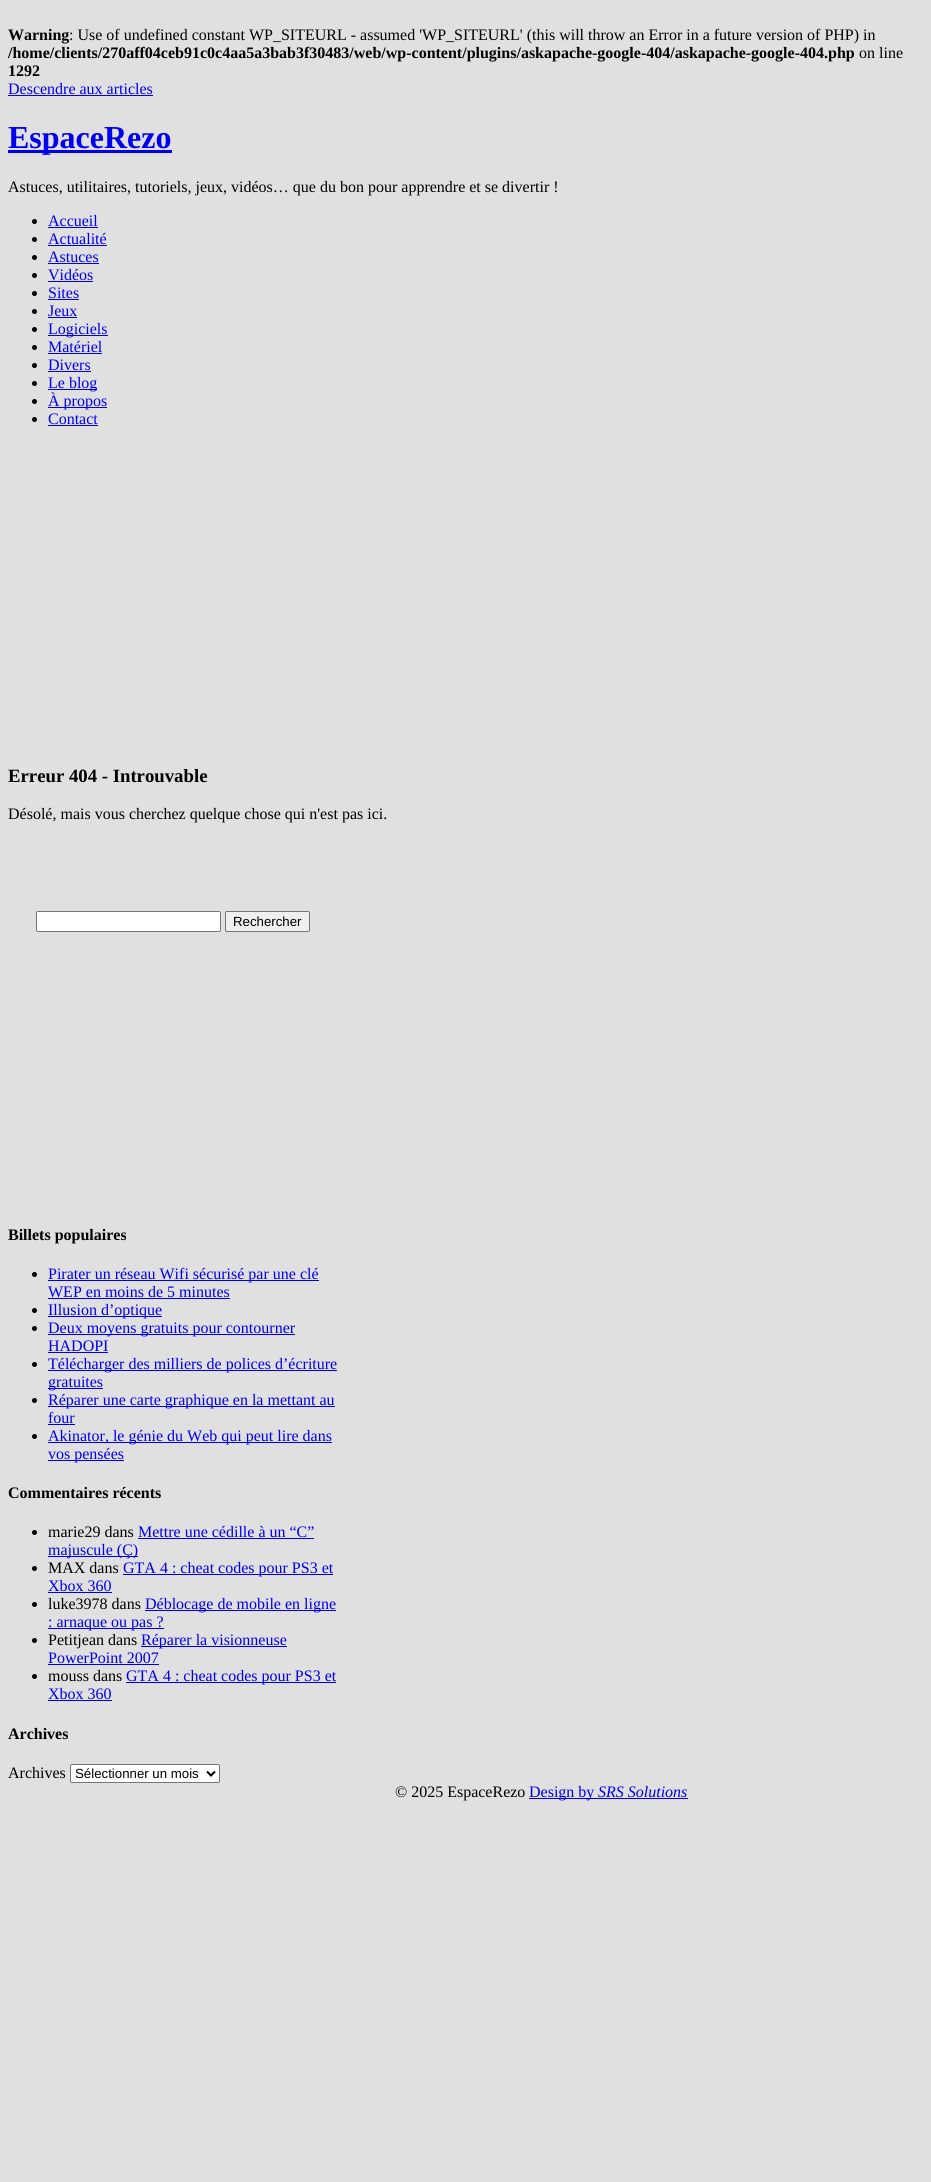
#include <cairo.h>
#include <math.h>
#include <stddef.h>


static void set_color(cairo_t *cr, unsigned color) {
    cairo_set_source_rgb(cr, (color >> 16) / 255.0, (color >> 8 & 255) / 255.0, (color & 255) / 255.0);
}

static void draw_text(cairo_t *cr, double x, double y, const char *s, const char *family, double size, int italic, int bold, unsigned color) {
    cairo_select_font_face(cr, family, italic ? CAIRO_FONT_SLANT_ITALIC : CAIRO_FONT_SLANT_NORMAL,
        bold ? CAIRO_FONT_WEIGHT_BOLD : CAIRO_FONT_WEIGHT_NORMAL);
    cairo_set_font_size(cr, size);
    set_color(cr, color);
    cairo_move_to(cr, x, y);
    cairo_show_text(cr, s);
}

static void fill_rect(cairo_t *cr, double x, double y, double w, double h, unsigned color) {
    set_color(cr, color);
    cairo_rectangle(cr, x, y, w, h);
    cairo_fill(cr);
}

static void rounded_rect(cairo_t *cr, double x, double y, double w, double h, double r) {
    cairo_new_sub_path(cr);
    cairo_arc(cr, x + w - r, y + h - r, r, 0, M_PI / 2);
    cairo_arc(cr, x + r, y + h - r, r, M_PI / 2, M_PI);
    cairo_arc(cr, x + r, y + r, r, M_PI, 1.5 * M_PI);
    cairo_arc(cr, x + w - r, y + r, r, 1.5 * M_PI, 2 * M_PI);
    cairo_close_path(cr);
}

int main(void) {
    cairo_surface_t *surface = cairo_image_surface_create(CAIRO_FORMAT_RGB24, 931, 2182);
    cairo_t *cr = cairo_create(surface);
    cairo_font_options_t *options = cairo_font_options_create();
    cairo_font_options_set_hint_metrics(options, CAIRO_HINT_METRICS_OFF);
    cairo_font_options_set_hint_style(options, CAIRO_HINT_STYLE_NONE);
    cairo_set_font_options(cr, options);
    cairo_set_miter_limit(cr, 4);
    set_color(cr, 0xE0E0E0);
    cairo_paint(cr);
    draw_text(cr, 8, 40, "Warning", "Liberation Serif", 16, 0, 1, 0x000000);
    draw_text(cr, 69, 40, ": Use of undefined constant WP_SITEURL - assumed 'WP_SITEURL' (this will throw an Error in a future version of PHP) in", "Liberation Serif", 16, 0, 0, 0x000000);
    draw_text(cr, 8, 58, "/home/clients/270aff04ceb91c0c4aa5a3bab3f30483/web/wp-content/plugins/askapache-google-404/askapache-google-404.php", "Liberation Serif", 16, 0, 1, 0x000000);
    draw_text(cr, 859, 58, "on line", "Liberation Serif", 16, 0, 0, 0x000000);
    draw_text(cr, 8, 76, "1292", "Liberation Serif", 16, 0, 1, 0x000000);
    draw_text(cr, 8, 94, "Descendre aux articles", "Liberation Serif", 16, 0, 0, 0x0000EE);
    fill_rect(cr, 8, 95, 145, 1, 0x0000EE);
    fill_rect(cr, 8, 150, 164, 3, 0x0000EE);
    draw_text(cr, 8, 148, "EspaceRezo", "Liberation Serif", 32, 0, 1, 0x0000EE);
    draw_text(cr, 8, 192, "Astuces, utilitaires, tutoriels, jeux, vidéos… que du bon pour apprendre et se divertir !", "Liberation Serif", 16, 0, 0, 0x000000);
    cairo_new_path(cr);
    cairo_arc(cr, 34.5, 221.5, 2.5, 0, 2 * M_PI);
    cairo_fill(cr);
    draw_text(cr, 48, 226, "Accueil", "Liberation Serif", 16, 0, 0, 0x0000EE);
    fill_rect(cr, 48, 227, 50, 1, 0x0000EE);
    set_color(cr, 0x000000);
    cairo_new_path(cr);
    cairo_arc(cr, 34.5, 239.5, 2.5, 0, 2 * M_PI);
    cairo_fill(cr);
    draw_text(cr, 48, 244, "Actualité", "Liberation Serif", 16, 0, 0, 0x0000EE);
    fill_rect(cr, 48, 245, 59, 1, 0x0000EE);
    set_color(cr, 0x000000);
    cairo_new_path(cr);
    cairo_arc(cr, 34.5, 257.5, 2.5, 0, 2 * M_PI);
    cairo_fill(cr);
    draw_text(cr, 48, 262, "Astuces", "Liberation Serif", 16, 0, 0, 0x0000EE);
    fill_rect(cr, 48, 263, 51, 1, 0x0000EE);
    set_color(cr, 0x000000);
    cairo_new_path(cr);
    cairo_arc(cr, 34.5, 275.5, 2.5, 0, 2 * M_PI);
    cairo_fill(cr);
    draw_text(cr, 48, 280, "Vidéos", "Liberation Serif", 16, 0, 0, 0x0000EE);
    fill_rect(cr, 48, 281, 45, 1, 0x0000EE);
    set_color(cr, 0x000000);
    cairo_new_path(cr);
    cairo_arc(cr, 34.5, 293.5, 2.5, 0, 2 * M_PI);
    cairo_fill(cr);
    draw_text(cr, 48, 298, "Sites", "Liberation Serif", 16, 0, 0, 0x0000EE);
    fill_rect(cr, 48, 299, 31, 1, 0x0000EE);
    set_color(cr, 0x000000);
    cairo_new_path(cr);
    cairo_arc(cr, 34.5, 311.5, 2.5, 0, 2 * M_PI);
    cairo_fill(cr);
    draw_text(cr, 48, 316, "Jeux", "Liberation Serif", 16, 0, 0, 0x0000EE);
    fill_rect(cr, 48, 317, 29, 1, 0x0000EE);
    set_color(cr, 0x000000);
    cairo_new_path(cr);
    cairo_arc(cr, 34.5, 329.5, 2.5, 0, 2 * M_PI);
    cairo_fill(cr);
    fill_rect(cr, 48, 335, 60, 1, 0x0000EE);
    draw_text(cr, 48, 334, "Logiciels", "Liberation Serif", 16, 0, 0, 0x0000EE);
    set_color(cr, 0x000000);
    cairo_new_path(cr);
    cairo_arc(cr, 34.5, 347.5, 2.5, 0, 2 * M_PI);
    cairo_fill(cr);
    draw_text(cr, 48, 352, "Matériel", "Liberation Serif", 16, 0, 0, 0x0000EE);
    fill_rect(cr, 48, 353, 54, 1, 0x0000EE);
    set_color(cr, 0x000000);
    cairo_new_path(cr);
    cairo_arc(cr, 34.5, 365.5, 2.5, 0, 2 * M_PI);
    cairo_fill(cr);
    draw_text(cr, 48, 370, "Divers", "Liberation Serif", 16, 0, 0, 0x0000EE);
    fill_rect(cr, 48, 371, 43, 1, 0x0000EE);
    set_color(cr, 0x000000);
    cairo_new_path(cr);
    cairo_arc(cr, 34.5, 383.5, 2.5, 0, 2 * M_PI);
    cairo_fill(cr);
    fill_rect(cr, 48, 389, 49, 1, 0x0000EE);
    draw_text(cr, 48, 388, "Le blog", "Liberation Serif", 16, 0, 0, 0x0000EE);
    set_color(cr, 0x000000);
    cairo_new_path(cr);
    cairo_arc(cr, 34.5, 401.5, 2.5, 0, 2 * M_PI);
    cairo_fill(cr);
    fill_rect(cr, 48, 407, 59, 1, 0x0000EE);
    draw_text(cr, 48, 406, "À propos", "Liberation Serif", 16, 0, 0, 0x0000EE);
    set_color(cr, 0x000000);
    cairo_new_path(cr);
    cairo_arc(cr, 34.5, 419.5, 2.5, 0, 2 * M_PI);
    cairo_fill(cr);
    draw_text(cr, 48, 424, "Contact", "Liberation Serif", 16, 0, 0, 0x0000EE);
    fill_rect(cr, 48, 425, 50, 1, 0x0000EE);
    draw_text(cr, 8, 782, "Erreur 404 - Introuvable", "Liberation Serif", 18.75, 0, 1, 0x000000);
    draw_text(cr, 8, 819, "Désolé, mais vous cherchez quelque chose qui n'est pas ici.", "Liberation Serif", 16, 0, 0, 0x000000);
    set_color(cr, 0xFFFFFF);
    rounded_rect(cr, 36.5, 911.5, 184, 20, 1.5);
    cairo_fill_preserve(cr);
    set_color(cr, 0x767676);
    cairo_set_line_width(cr, 1);
    cairo_stroke(cr);
    set_color(cr, 0xEFEFEF);
    rounded_rect(cr, 225.5, 911.5, 84, 20, 1.5);
    cairo_fill_preserve(cr);
    set_color(cr, 0x767676);
    cairo_stroke(cr);
    draw_text(cr, 233, 926, "Rechercher", "Liberation Sans", 13.25, 0, 0, 0x000000);
    draw_text(cr, 8, 1240, "Billets populaires", "Liberation Serif", 16, 0, 1, 0x000000);
    cairo_new_path(cr);
    cairo_arc(cr, 34.5, 1274.5, 2.5, 0, 2 * M_PI);
    cairo_fill(cr);
    fill_rect(cr, 48, 1280, 271, 1, 0x0000EE);
    draw_text(cr, 48, 1279, "Pirater un réseau Wifi sécurisé par une clé", "Liberation Serif", 16, 0, 0, 0x0000EE);
    draw_text(cr, 48, 1297, "WEP en moins de 5 minutes", "Liberation Serif", 16, 0, 0, 0x0000EE);
    fill_rect(cr, 48, 1298, 182, 1, 0x0000EE);
    set_color(cr, 0x000000);
    cairo_new_path(cr);
    cairo_arc(cr, 34.5, 1310.5, 2.5, 0, 2 * M_PI);
    cairo_fill(cr);
    fill_rect(cr, 48, 1316, 114, 1, 0x0000EE);
    draw_text(cr, 48, 1315, "Illusion d’optique", "Liberation Serif", 16, 0, 0, 0x0000EE);
    set_color(cr, 0x000000);
    cairo_new_path(cr);
    cairo_arc(cr, 34.5, 1328.5, 2.5, 0, 2 * M_PI);
    cairo_fill(cr);
    fill_rect(cr, 48, 1334, 247, 1, 0x0000EE);
    draw_text(cr, 48, 1333, "Deux moyens gratuits pour contourner", "Liberation Serif", 16, 0, 0, 0x0000EE);
    draw_text(cr, 48, 1351, "HADOPI", "Liberation Serif", 16, 0, 0, 0x0000EE);
    fill_rect(cr, 48, 1352, 60, 1, 0x0000EE);
    set_color(cr, 0x000000);
    cairo_new_path(cr);
    cairo_arc(cr, 34.5, 1364.5, 2.5, 0, 2 * M_PI);
    cairo_fill(cr);
    fill_rect(cr, 48, 1370, 289, 1, 0x0000EE);
    draw_text(cr, 48, 1369, "Télécharger des milliers de polices d’écriture", "Liberation Serif", 16, 0, 0, 0x0000EE);
    fill_rect(cr, 48, 1388, 55, 1, 0x0000EE);
    draw_text(cr, 48, 1387, "gratuites", "Liberation Serif", 16, 0, 0, 0x0000EE);
    set_color(cr, 0x000000);
    cairo_new_path(cr);
    cairo_arc(cr, 34.5, 1400.5, 2.5, 0, 2 * M_PI);
    cairo_fill(cr);
    fill_rect(cr, 48, 1406, 287, 1, 0x0000EE);
    draw_text(cr, 48, 1405, "Réparer une carte graphique en la mettant au", "Liberation Serif", 16, 0, 0, 0x0000EE);
    draw_text(cr, 48, 1423, "four", "Liberation Serif", 16, 0, 0, 0x0000EE);
    fill_rect(cr, 48, 1424, 27, 1, 0x0000EE);
    set_color(cr, 0x000000);
    cairo_new_path(cr);
    cairo_arc(cr, 34.5, 1436.5, 2.5, 0, 2 * M_PI);
    cairo_fill(cr);
    fill_rect(cr, 48, 1442, 284, 1, 0x0000EE);
    draw_text(cr, 48, 1441, "Akinator, le génie du Web qui peut lire dans", "Liberation Serif", 16, 0, 0, 0x0000EE);
    fill_rect(cr, 48, 1460, 76, 1, 0x0000EE);
    draw_text(cr, 48, 1459, "vos pensées", "Liberation Serif", 16, 0, 0, 0x0000EE);
    draw_text(cr, 8, 1498, "Commentaires récents", "Liberation Serif", 16, 0, 1, 0x000000);
    cairo_new_path(cr);
    cairo_arc(cr, 34.5, 1532.5, 2.5, 0, 2 * M_PI);
    cairo_fill(cr);
    draw_text(cr, 48, 1537, "marie29 dans", "Liberation Serif", 16, 0, 0, 0x000000);
    draw_text(cr, 138, 1537, "Mettre une cédille à un “C”", "Liberation Serif", 16, 0, 0, 0x0000EE);
    fill_rect(cr, 138, 1538, 176, 1, 0x0000EE);
    fill_rect(cr, 48, 1556, 90, 1, 0x0000EE);
    draw_text(cr, 48, 1555, "majuscule (Ç)", "Liberation Serif", 16, 0, 0, 0x0000EE);
    set_color(cr, 0x000000);
    cairo_new_path(cr);
    cairo_arc(cr, 34.5, 1568.5, 2.5, 0, 2 * M_PI);
    cairo_fill(cr);
    draw_text(cr, 48, 1573, "MAX dans", "Liberation Serif", 16, 0, 0, 0x000000);
    fill_rect(cr, 123, 1574, 210, 1, 0x0000EE);
    draw_text(cr, 123, 1573, "GTA 4 : cheat codes pour PS3 et", "Liberation Serif", 16, 0, 0, 0x0000EE);
    draw_text(cr, 48, 1591, "Xbox 360", "Liberation Serif", 16, 0, 0, 0x0000EE);
    fill_rect(cr, 48, 1592, 64, 1, 0x0000EE);
    set_color(cr, 0x000000);
    cairo_new_path(cr);
    cairo_arc(cr, 34.5, 1604.5, 2.5, 0, 2 * M_PI);
    cairo_fill(cr);
    draw_text(cr, 48, 1609, "luke3978 dans", "Liberation Serif", 16, 0, 0, 0x000000);
    fill_rect(cr, 145, 1610, 191, 1, 0x0000EE);
    draw_text(cr, 145, 1609, "Déblocage de mobile en ligne", "Liberation Serif", 16, 0, 0, 0x0000EE);
    fill_rect(cr, 48, 1628, 116, 1, 0x0000EE);
    draw_text(cr, 48, 1627, ": arnaque ou pas ?", "Liberation Serif", 16, 0, 0, 0x0000EE);
    set_color(cr, 0x000000);
    cairo_new_path(cr);
    cairo_arc(cr, 34.5, 1640.5, 2.5, 0, 2 * M_PI);
    cairo_fill(cr);
    draw_text(cr, 48, 1645, "Petitjean dans", "Liberation Serif", 16, 0, 0, 0x000000);
    fill_rect(cr, 141, 1646, 146, 1, 0x0000EE);
    draw_text(cr, 141, 1645, "Réparer la visionneuse", "Liberation Serif", 16, 0, 0, 0x0000EE);
    draw_text(cr, 48, 1663, "PowerPoint 2007", "Liberation Serif", 16, 0, 0, 0x0000EE);
    fill_rect(cr, 48, 1664, 111, 1, 0x0000EE);
    set_color(cr, 0x000000);
    cairo_new_path(cr);
    cairo_arc(cr, 34.5, 1676.5, 2.5, 0, 2 * M_PI);
    cairo_fill(cr);
    draw_text(cr, 48, 1681, "mouss dans", "Liberation Serif", 16, 0, 0, 0x000000);
    fill_rect(cr, 126, 1682, 210, 1, 0x0000EE);
    draw_text(cr, 126, 1681, "GTA 4 : cheat codes pour PS3 et", "Liberation Serif", 16, 0, 0, 0x0000EE);
    draw_text(cr, 48, 1699, "Xbox 360", "Liberation Serif", 16, 0, 0, 0x0000EE);
    fill_rect(cr, 48, 1700, 64, 1, 0x0000EE);
    draw_text(cr, 8, 1739, "Archives", "Liberation Serif", 16, 0, 1, 0x000000);
    draw_text(cr, 8, 1778, "Archives", "Liberation Serif", 16, 0, 0, 0x000000);
    set_color(cr, 0xFFFFFF);
    rounded_rect(cr, 70.5, 1764.5, 149, 18, 1.5);
    cairo_fill_preserve(cr);
    set_color(cr, 0x767676);
    cairo_stroke(cr);
    cairo_new_path(cr);
    cairo_move_to(cr, 207, 1771.5);
    cairo_line_to(cr, 211, 1775.5);
    cairo_line_to(cr, 215, 1771.5);
    set_color(cr, 0x000000);
    cairo_set_line_width(cr, 2);
    cairo_stroke(cr);
    draw_text(cr, 75, 1778, "Sélectionner un mois", "Liberation Sans", 13.25, 0, 0, 0x000000);
    draw_text(cr, 395, 1797, "© 2025 EspaceRezo", "Liberation Serif", 16, 0, 0, 0x000000);
    fill_rect(cr, 529, 1798, 159, 1, 0x0000EE);
    draw_text(cr, 529, 1797, "Design by", "Liberation Serif", 16, 0, 0, 0x0000EE);
    draw_text(cr, 598, 1797, "SRS Solutions", "Liberation Serif", 16, 1, 0, 0x0000EE);
    cairo_surface_write_to_png(surface, "output.png");
    cairo_font_options_destroy(options);
    cairo_destroy(cr);
    cairo_surface_destroy(surface);
    return 0;
}
